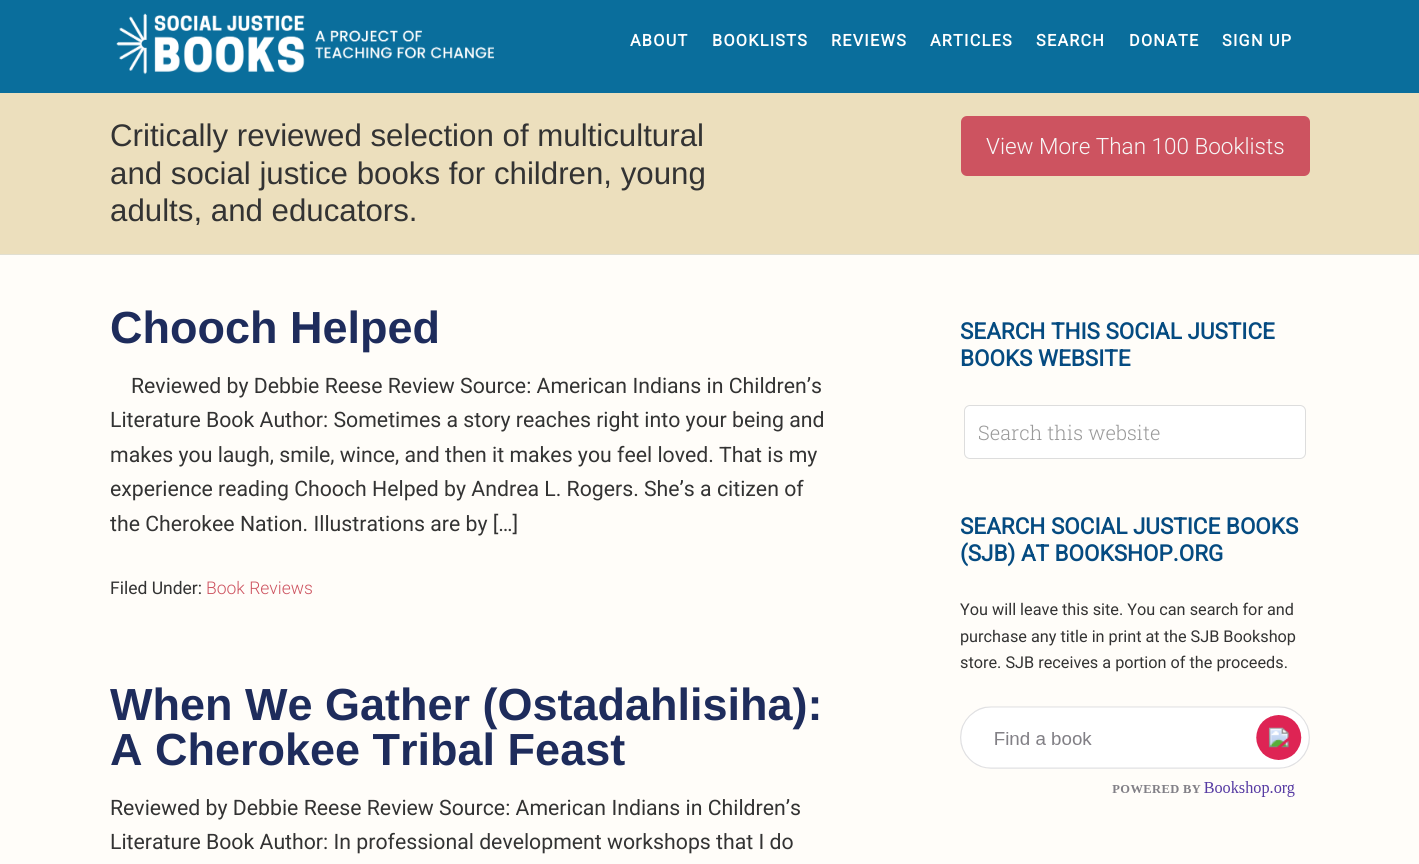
#include <cairo.h>
#include <math.h>
#include <stddef.h>


static void set_color(cairo_t *cr, unsigned color) {
    cairo_set_source_rgb(cr, (color >> 16) / 255.0, (color >> 8 & 255) / 255.0, (color & 255) / 255.0);
}

static void draw_text(cairo_t *cr, double x, double y, const char *s, const char *family, double size, int italic, int bold, unsigned color) {
    cairo_select_font_face(cr, family, italic ? CAIRO_FONT_SLANT_ITALIC : CAIRO_FONT_SLANT_NORMAL,
        bold ? CAIRO_FONT_WEIGHT_BOLD : CAIRO_FONT_WEIGHT_NORMAL);
    cairo_set_font_size(cr, size);
    set_color(cr, color);
    cairo_move_to(cr, x, y);
    cairo_show_text(cr, s);
}

static void draw_spaced(cairo_t *cr, double x, double y, const char *s, double letter, double word) {
    cairo_move_to(cr, x, y);
    while (*s) {
        char ch[5] = {0};
        int n = 0;
        do ch[n++] = *s++; while ((*s & 0xC0) == 0x80);
        cairo_show_text(cr, ch);
        cairo_rel_move_to(cr, letter + word * (*ch == ' '), 0);
    }
}

static void fill_rect(cairo_t *cr, double x, double y, double w, double h, unsigned color) {
    set_color(cr, color);
    cairo_rectangle(cr, x, y, w, h);
    cairo_fill(cr);
}

static void rounded_rect(cairo_t *cr, double x, double y, double w, double h, double r) {
    cairo_new_sub_path(cr);
    cairo_arc(cr, x + w - r, y + h - r, r, 0, M_PI / 2);
    cairo_arc(cr, x + r, y + h - r, r, M_PI / 2, M_PI);
    cairo_arc(cr, x + r, y + r, r, M_PI, 1.5 * M_PI);
    cairo_arc(cr, x + w - r, y + r, r, 1.5 * M_PI, 2 * M_PI);
    cairo_close_path(cr);
}

static void draw_image(cairo_t *cr, const char *path, double x, double y, double w, double h) {
    cairo_surface_t *image = cairo_image_surface_create_from_png(path);
    cairo_save(cr);
    cairo_set_source_surface(cr, image, x, y);
    cairo_rectangle(cr, x, y, w, h);
    cairo_fill(cr);
    cairo_restore(cr);
    cairo_surface_destroy(image);
}

int main(void) {
    cairo_surface_t *surface = cairo_image_surface_create(CAIRO_FORMAT_RGB24, 1419, 864);
    cairo_t *cr = cairo_create(surface);
    cairo_font_options_t *options = cairo_font_options_create();
    cairo_font_options_set_hint_metrics(options, CAIRO_HINT_METRICS_OFF);
    cairo_font_options_set_hint_style(options, CAIRO_HINT_STYLE_NONE);
    cairo_set_font_options(cr, options);
    cairo_set_miter_limit(cr, 4);
    set_color(cr, 0xECDFBD);
    cairo_paint(cr);
    fill_rect(cr, 0, 0, 1419, 93, 0x0A6E9C);
    draw_image(cr, "assets/img1.png", 116, 13, 378, 62);
    cairo_select_font_face(cr, "Roboto", CAIRO_FONT_SLANT_NORMAL, CAIRO_FONT_WEIGHT_BOLD);
    cairo_set_font_size(cr, 16.25);
    set_color(cr, 0xFFFFFF);
    draw_spaced(cr, 630, 46, "ABOUT", 1.25, 0);
    draw_spaced(cr, 712, 46, "BOOKLISTS", 1.25, 0);
    draw_spaced(cr, 831, 46, "REVIEWS", 1.25, 0);
    draw_spaced(cr, 930, 46, "ARTICLES", 1.25, 0);
    draw_spaced(cr, 1036, 46, "SEARCH", 1.25, 0);
    draw_spaced(cr, 1129, 46, "DONATE", 1.25, 0);
    draw_spaced(cr, 1222, 46, "SIGN UP", 1.25, 0);
    fill_rect(cr, 0, 254, 1419, 1, 0xE1DFD1);
    draw_text(cr, 110, 146, "Critically reviewed selection of multicultural", "Liberation Sans", 31.25, 0, 0, 0x333333);
    draw_text(cr, 110, 184, "and social justice books for children, young", "Liberation Sans", 31.25, 0, 0, 0x333333);
    draw_text(cr, 110, 221, "adults, and educators.", "Liberation Sans", 31.25, 0, 0, 0x333333);
    set_color(cr, 0xCD5360);
    rounded_rect(cr, 961, 116, 349, 60, 6);
    cairo_fill(cr);
    draw_text(cr, 986, 154, "View More Than 100 Booklists", "Roboto Light", 22.5, 0, 0, 0xF7F7F7);
    fill_rect(cr, 0, 255, 1419, 609, 0xFFFDF9);
    draw_text(cr, 110, 343, "Chooch Helped", "Liberation Sans", 45, 0, 1, 0x1E2C5C);
    draw_text(cr, 131, 393, "Reviewed by Debbie Reese Review Source: American Indians in Children’s", "Roboto", 21.25, 0, 0, 0x333333);
    draw_text(cr, 110, 427, "Literature Book Author: Sometimes a story reaches right into your being and", "Roboto", 21.25, 0, 0, 0x333333);
    draw_text(cr, 110, 462, "makes you laugh, smile, wince, and then it makes you feel loved. That is my", "Roboto", 21.25, 0, 0, 0x333333);
    draw_text(cr, 110, 496, "experience reading Chooch Helped by Andrea L. Rogers. She’s a citizen of", "Roboto", 21.25, 0, 0, 0x333333);
    draw_text(cr, 110, 531, "the Cherokee Nation. Illustrations are by […]", "Roboto", 21.25, 0, 0, 0x333333);
    draw_text(cr, 110, 594, "Filed Under:", "Roboto", 17.5, 0, 0, 0x333333);
    draw_text(cr, 206, 594, "Book Reviews", "Roboto Light", 17.5, 0, 0, 0xCD5360);
    draw_text(cr, 110, 720, "When We Gather (Ostadahlisiha):", "Liberation Sans", 45, 0, 1, 0x1E2C5C);
    draw_text(cr, 110, 765, "A Cherokee Tribal Feast", "Liberation Sans", 45, 0, 1, 0x1E2C5C);
    draw_text(cr, 110, 815, "Reviewed by Debbie Reese Review Source: American Indians in Children’s", "Roboto", 21.25, 0, 0, 0x333333);
    draw_text(cr, 110, 849, "Literature Book Author: In professional development workshops that I do", "Roboto", 21.25, 0, 0, 0x333333);
    draw_text(cr, 960, 339, "SEARCH THIS SOCIAL JUSTICE", "Roboto", 22.5, 0, 1, 0x054B81);
    draw_text(cr, 960, 366, "BOOKS WEBSITE", "Roboto", 22.5, 0, 1, 0x054B81);
    set_color(cr, 0xFFFFFF);
    rounded_rect(cr, 964.5, 405.5, 341, 53, 5.5);
    cairo_fill_preserve(cr);
    set_color(cr, 0xDDDDDD);
    cairo_set_line_width(cr, 1);
    cairo_stroke(cr);
    draw_text(cr, 978, 440, "Search this website", "Roboto Slab Light", 20, 0, 0, 0x999999);
    draw_text(cr, 960, 534, "SEARCH SOCIAL JUSTICE BOOKS", "Roboto", 22.5, 0, 1, 0x054B81);
    draw_text(cr, 960, 561, "(SJB) AT BOOKSHOP.ORG", "Roboto", 22.5, 0, 1, 0x054B81);
    draw_text(cr, 960, 615, "You will leave this site. You can search for and", "Roboto", 16.25, 0, 0, 0x333333);
    draw_text(cr, 960, 642, "purchase any title in print at the SJB Bookshop", "Roboto", 16.25, 0, 0, 0x333333);
    draw_text(cr, 960, 668, "store. SJB receives a portion of the proceeds.", "Roboto", 16.25, 0, 0, 0x333333);
    draw_image(cr, "assets/img2.png", 960, 706, 350, 91);
    cairo_surface_write_to_png(surface, "output.png");
    cairo_font_options_destroy(options);
    cairo_destroy(cr);
    cairo_surface_destroy(surface);
    return 0;
}
